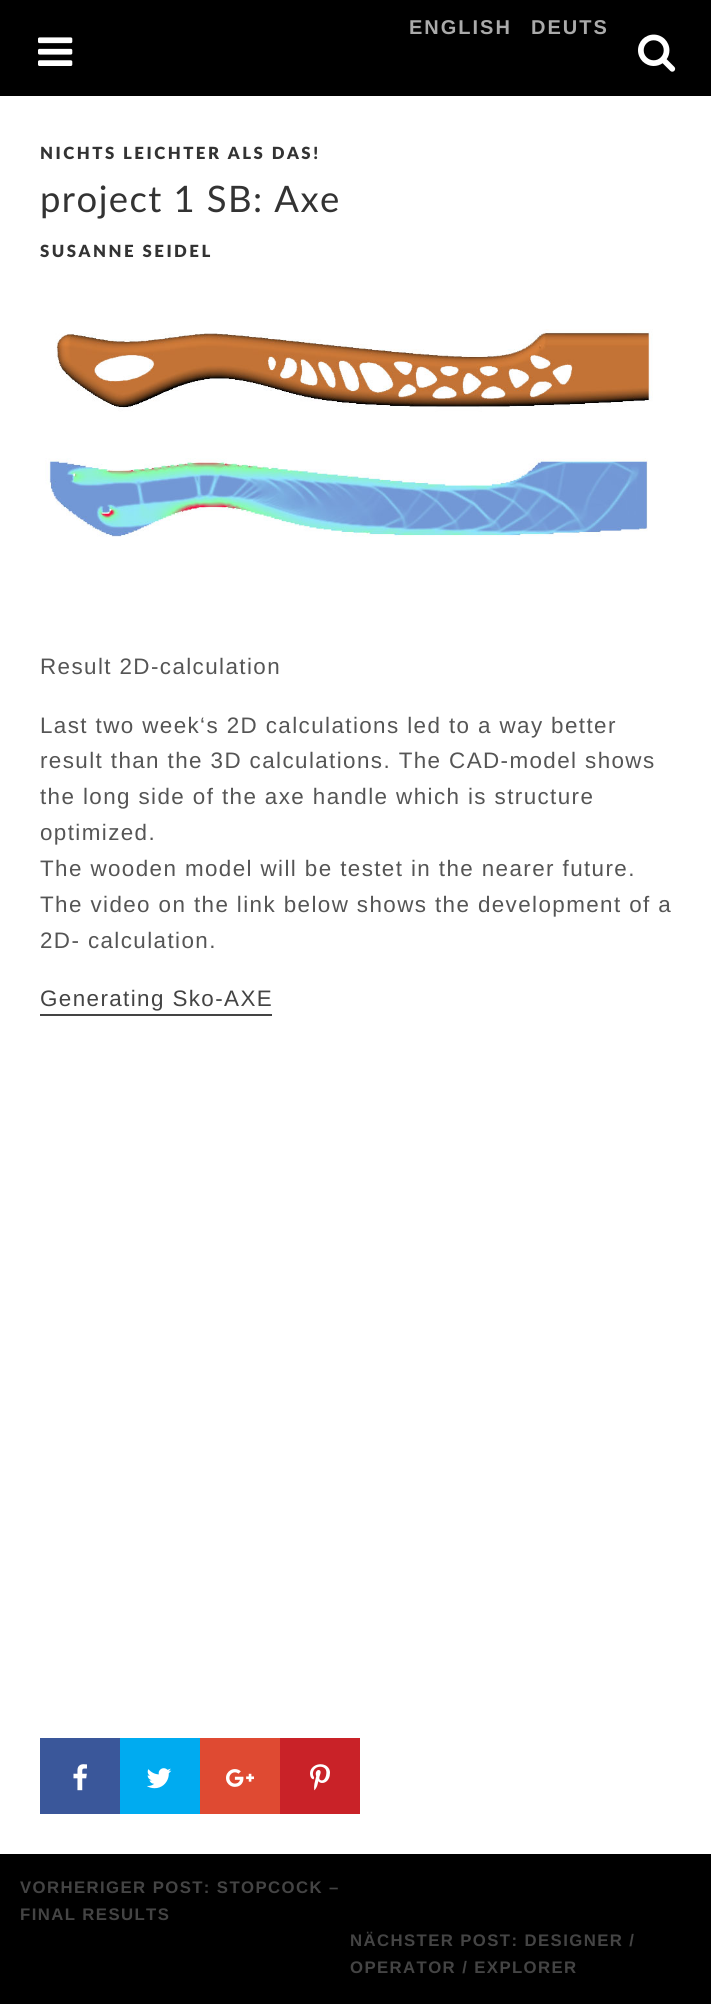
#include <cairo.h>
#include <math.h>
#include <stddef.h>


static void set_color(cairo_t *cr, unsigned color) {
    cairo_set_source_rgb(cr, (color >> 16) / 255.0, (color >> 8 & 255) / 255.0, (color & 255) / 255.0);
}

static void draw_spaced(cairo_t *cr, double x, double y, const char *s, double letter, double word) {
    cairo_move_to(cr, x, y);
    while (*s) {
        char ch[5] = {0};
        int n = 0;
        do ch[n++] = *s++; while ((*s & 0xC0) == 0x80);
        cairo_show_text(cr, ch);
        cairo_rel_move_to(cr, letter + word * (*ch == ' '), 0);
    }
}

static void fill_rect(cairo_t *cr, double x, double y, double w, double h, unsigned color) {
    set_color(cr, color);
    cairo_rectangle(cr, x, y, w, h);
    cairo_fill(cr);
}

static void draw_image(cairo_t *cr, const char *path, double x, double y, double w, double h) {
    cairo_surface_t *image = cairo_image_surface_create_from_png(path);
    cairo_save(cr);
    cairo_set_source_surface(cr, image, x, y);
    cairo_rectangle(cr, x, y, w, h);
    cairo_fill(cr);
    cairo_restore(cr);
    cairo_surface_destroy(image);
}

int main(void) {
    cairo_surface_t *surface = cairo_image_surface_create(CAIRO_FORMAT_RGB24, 711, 2004);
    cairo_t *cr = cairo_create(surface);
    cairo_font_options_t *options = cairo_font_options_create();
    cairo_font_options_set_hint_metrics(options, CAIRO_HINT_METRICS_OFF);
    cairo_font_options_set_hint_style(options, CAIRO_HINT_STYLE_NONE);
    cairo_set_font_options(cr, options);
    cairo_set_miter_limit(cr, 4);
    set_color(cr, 0x000000);
    cairo_paint(cr);
    cairo_select_font_face(cr, "Liberation Sans", CAIRO_FONT_SLANT_NORMAL, CAIRO_FONT_WEIGHT_BOLD);
    cairo_set_font_size(cr, 20);
    set_color(cr, 0xAAAAAA);
    draw_spaced(cr, 409, 34, "ENGLISH", 2, 0);
    draw_spaced(cr, 531, 34, "DEUTS", 2, 0);
    draw_image(cr, "assets/img1.png", 38, 37, 35, 29);
    draw_image(cr, "assets/img2.png", 638, 34, 38, 38);
    fill_rect(cr, 0, 96, 711, 1758, 0xFFFFFF);
    cairo_select_font_face(cr, "Lato ExtraBold", CAIRO_FONT_SLANT_NORMAL, CAIRO_FONT_WEIGHT_NORMAL);
    cairo_set_font_size(cr, 16.75);
    set_color(cr, 0x333333);
    draw_spaced(cr, 40, 159, "NICHTS LEICHTER ALS DAS!", 2.5, 0);
    cairo_select_font_face(cr, "Lato", CAIRO_FONT_SLANT_NORMAL, CAIRO_FONT_WEIGHT_NORMAL);
    cairo_set_font_size(cr, 36.5);
    draw_spaced(cr, 40, 212, "project 1 SB: Axe", 1.4, 0);
    cairo_select_font_face(cr, "Lato ExtraBold", CAIRO_FONT_SLANT_NORMAL, CAIRO_FONT_WEIGHT_NORMAL);
    cairo_set_font_size(cr, 16.75);
    draw_spaced(cr, 40, 257, "SUSANNE SEIDEL", 2.5, 0);
    draw_image(cr, "assets/img3.png", 45, 329, 608, 208);
    cairo_select_font_face(cr, "Liberation Sans", CAIRO_FONT_SLANT_NORMAL, CAIRO_FONT_WEIGHT_NORMAL);
    cairo_set_font_size(cr, 22.4);
    set_color(cr, 0x555555);
    draw_spaced(cr, 40, 674, "Result 2D-calculation", 1.4, 0);
    draw_spaced(cr, 40, 733, "Last two week‘s 2D calculations led to a way better", 1.4, 0);
    draw_spaced(cr, 40, 768, "result than the 3D calculations. The CAD-model shows", 1.4, 0);
    draw_spaced(cr, 40, 804, "the long side of the axe handle which is structure", 1.4, 0);
    draw_spaced(cr, 40, 840, "optimized.", 1.4, 0);
    draw_spaced(cr, 40, 876, "The wooden model will be testet in the nearer future.", 1.4, 0);
    draw_spaced(cr, 40, 912, "The video on the link below shows the development of a", 1.4, 0);
    draw_spaced(cr, 40, 948, "2D- calculation.", 1.4, 0);
    set_color(cr, 0x444444);
    draw_spaced(cr, 40, 1006, "Generating Sko-AXE", 1.4, 0);
    fill_rect(cr, 40, 1014, 232, 2, 0x444444);
    fill_rect(cr, 40, 1738, 80, 76, 0x3A579A);
    draw_image(cr, "assets/img4.png", 73, 1764, 14, 27);
    fill_rect(cr, 120, 1738, 80, 76, 0x00ABF0);
    draw_image(cr, "assets/img5.png", 147, 1768, 25, 21);
    fill_rect(cr, 200, 1738, 80, 76, 0xDF4A32);
    draw_image(cr, "assets/img6.png", 226, 1769, 28, 18);
    fill_rect(cr, 280, 1738, 80, 76, 0xC92228);
    draw_image(cr, "assets/img7.png", 310, 1764, 20, 27);
    cairo_select_font_face(cr, "Liberation Sans", CAIRO_FONT_SLANT_NORMAL, CAIRO_FONT_WEIGHT_BOLD);
    cairo_set_font_size(cr, 16.75);
    set_color(cr, 0x444444);
    draw_spaced(cr, 20, 1893, "VORHERIGER POST: STOPCOCK –", 1.4, 0);
    draw_spaced(cr, 20, 1920, "FINAL RESULTS", 1.4, 0);
    draw_spaced(cr, 350, 1946, "NÄCHSTER POST: DESIGNER /", 1.4, 0);
    draw_spaced(cr, 350, 1973, "OPERATOR / EXPLORER", 1.4, 0);
    cairo_surface_write_to_png(surface, "output.png");
    cairo_font_options_destroy(options);
    cairo_destroy(cr);
    cairo_surface_destroy(surface);
    return 0;
}
